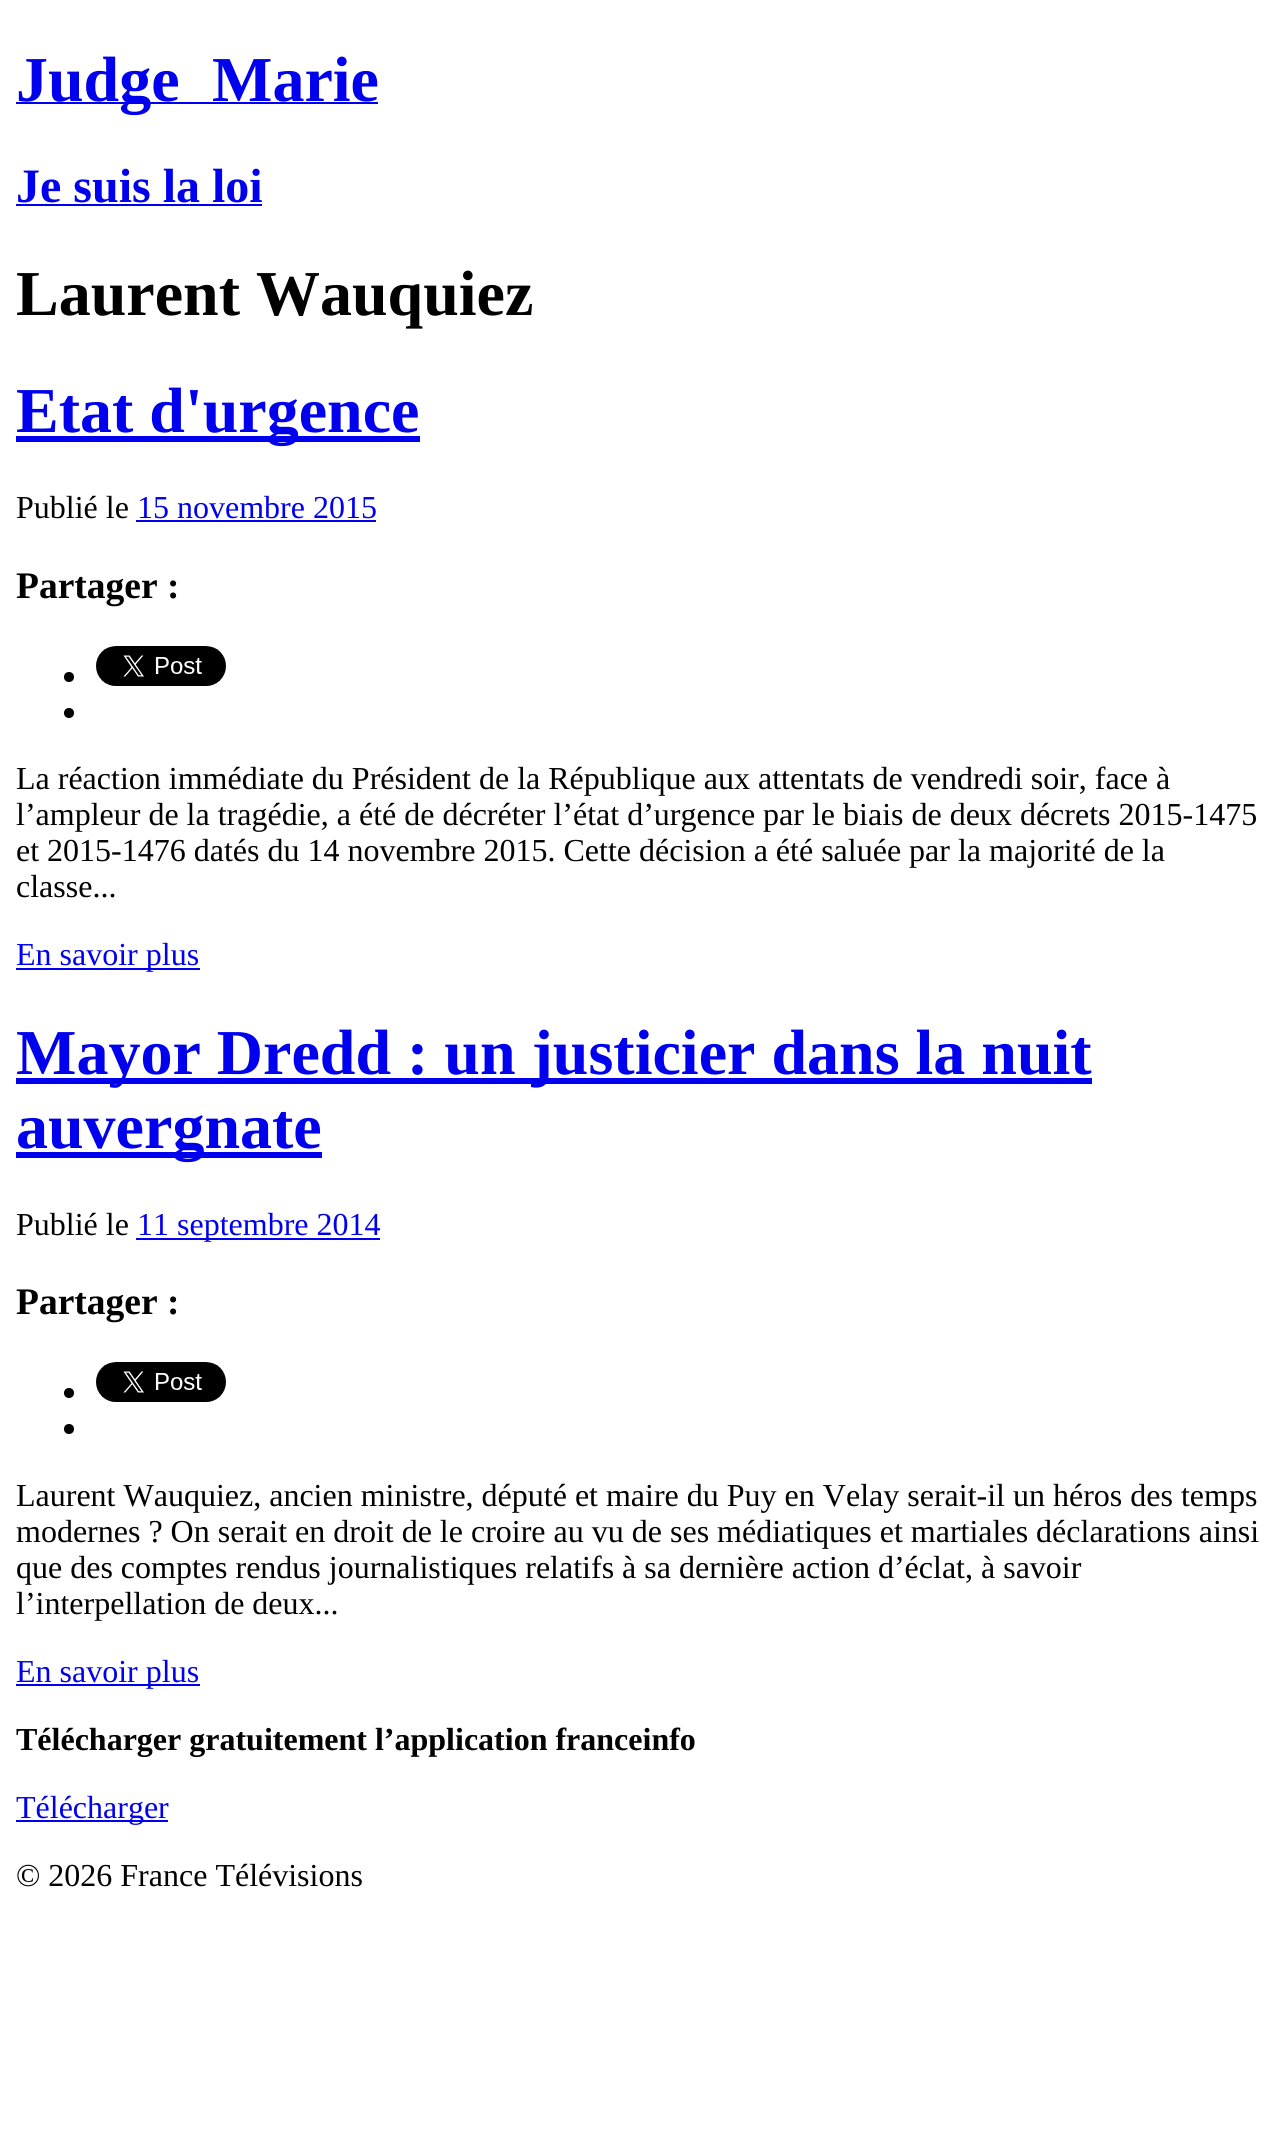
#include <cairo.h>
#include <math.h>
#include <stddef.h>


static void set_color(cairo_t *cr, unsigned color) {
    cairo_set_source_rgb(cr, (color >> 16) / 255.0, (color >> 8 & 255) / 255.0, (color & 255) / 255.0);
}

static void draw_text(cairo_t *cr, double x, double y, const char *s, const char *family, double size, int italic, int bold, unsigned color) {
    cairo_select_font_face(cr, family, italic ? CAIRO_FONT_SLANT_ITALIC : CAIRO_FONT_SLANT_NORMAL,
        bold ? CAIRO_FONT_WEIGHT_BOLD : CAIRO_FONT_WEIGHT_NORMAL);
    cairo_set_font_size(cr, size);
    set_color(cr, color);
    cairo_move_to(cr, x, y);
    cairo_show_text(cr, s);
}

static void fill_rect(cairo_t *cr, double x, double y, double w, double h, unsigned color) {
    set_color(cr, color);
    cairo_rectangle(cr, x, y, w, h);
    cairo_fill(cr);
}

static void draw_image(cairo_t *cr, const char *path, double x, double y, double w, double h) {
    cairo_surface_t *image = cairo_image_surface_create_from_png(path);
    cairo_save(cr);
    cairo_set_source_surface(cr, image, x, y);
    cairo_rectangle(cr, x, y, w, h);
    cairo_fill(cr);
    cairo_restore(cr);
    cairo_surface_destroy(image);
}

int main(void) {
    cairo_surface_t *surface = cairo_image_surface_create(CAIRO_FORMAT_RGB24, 1282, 2144);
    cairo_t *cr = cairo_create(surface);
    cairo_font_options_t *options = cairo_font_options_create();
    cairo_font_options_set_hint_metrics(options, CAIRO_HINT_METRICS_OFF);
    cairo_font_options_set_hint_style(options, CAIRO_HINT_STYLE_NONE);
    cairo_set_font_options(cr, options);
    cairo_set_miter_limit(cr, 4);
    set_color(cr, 0xFFFFFF);
    cairo_paint(cr);
    fill_rect(cr, 16, 102, 362, 2, 0x0000EE);
    draw_text(cr, 16, 101, "Judge", "Liberation Serif", 64, 0, 1, 0x0000EE);
    draw_text(cr, 212, 101, "Marie", "Liberation Serif", 64, 0, 1, 0x0000EE);
    draw_text(cr, 16, 202, "Je suis la loi", "Liberation Serif", 48, 0, 1, 0x0000EE);
    fill_rect(cr, 16, 204, 246, 2, 0x0000EE);
    draw_text(cr, 16, 315, "Laurent Wauquiez", "Liberation Serif", 64, 0, 1, 0x000000);
    fill_rect(cr, 16, 436, 404, 6, 0x0000EE);
    draw_text(cr, 16, 432, "Etat d'urgence", "Liberation Serif", 64, 0, 1, 0x0000EE);
    draw_text(cr, 16, 518, "Publié le", "Liberation Serif", 32, 0, 0, 0x000000);
    draw_text(cr, 137, 518, "15 novembre 2015", "Liberation Serif", 32, 0, 0, 0x0000EE);
    fill_rect(cr, 136, 520, 240, 2, 0x0000EE);
    draw_text(cr, 16, 598, "Partager :", "Liberation Serif", 37.5, 0, 1, 0x000000);
    cairo_new_path(cr);
    cairo_arc(cr, 69, 677, 5, 0, 2 * M_PI);
    cairo_fill(cr);
    draw_image(cr, "assets/img1.png", 96, 646, 130, 40);
    cairo_arc(cr, 69, 713, 5, 0, 2 * M_PI);
    cairo_fill(cr);
    draw_text(cr, 16, 789, "La réaction immédiate du Président de la République aux attentats de vendredi soir, face à", "Liberation Serif", 32, 0, 0, 0x000000);
    draw_text(cr, 16, 825, "l’ampleur de la tragédie, a été de décréter l’état d’urgence par le biais de deux décrets 2015-1475", "Liberation Serif", 32, 0, 0, 0x000000);
    draw_text(cr, 16, 861, "et 2015-1476 datés du 14 novembre 2015. Cette décision a été saluée par la majorité de la", "Liberation Serif", 32, 0, 0, 0x000000);
    draw_text(cr, 16, 897, "classe...", "Liberation Serif", 32, 0, 0, 0x000000);
    fill_rect(cr, 16, 968, 184, 2, 0x0000EE);
    draw_text(cr, 16, 965, "En savoir plus", "Liberation Serif", 32, 0, 0, 0x0000EE);
    fill_rect(cr, 16, 1078, 1076, 6, 0x0000EE);
    draw_text(cr, 16, 1074, "Mayor Dredd : un justicier dans la nuit", "Liberation Serif", 64, 0, 1, 0x0000EE);
    fill_rect(cr, 16, 1152, 306, 6, 0x0000EE);
    draw_text(cr, 16, 1148, "auvergnate", "Liberation Serif", 64, 0, 1, 0x0000EE);
    draw_text(cr, 16, 1235, "Publié le", "Liberation Serif", 32, 0, 0, 0x000000);
    fill_rect(cr, 136, 1238, 244, 2, 0x0000EE);
    draw_text(cr, 137, 1235, "11 septembre 2014", "Liberation Serif", 32, 0, 0, 0x0000EE);
    draw_text(cr, 16, 1314, "Partager :", "Liberation Serif", 37.5, 0, 1, 0x000000);
    cairo_new_path(cr);
    cairo_arc(cr, 69, 1393, 5, 0, 2 * M_PI);
    cairo_fill(cr);
    draw_image(cr, "assets/img1.png", 96, 1362, 130, 40);
    cairo_arc(cr, 69, 1429, 5, 0, 2 * M_PI);
    cairo_fill(cr);
    draw_text(cr, 16, 1506, "Laurent Wauquiez, ancien ministre, député et maire du Puy en Velay serait-il un héros des temps", "Liberation Serif", 32, 0, 0, 0x000000);
    draw_text(cr, 16, 1542, "modernes ? On serait en droit de le croire au vu de ses médiatiques et martiales déclarations ainsi", "Liberation Serif", 32, 0, 0, 0x000000);
    draw_text(cr, 16, 1578, "que des comptes rendus journalistiques relatifs à sa dernière action d’éclat, à savoir", "Liberation Serif", 32, 0, 0, 0x000000);
    draw_text(cr, 16, 1614, "l’interpellation de deux...", "Liberation Serif", 32, 0, 0, 0x000000);
    fill_rect(cr, 16, 1684, 184, 2, 0x0000EE);
    draw_text(cr, 16, 1682, "En savoir plus", "Liberation Serif", 32, 0, 0, 0x0000EE);
    draw_text(cr, 16, 1750, "Télécharger gratuitement l’application franceinfo", "Liberation Serif", 32, 0, 1, 0x000000);
    fill_rect(cr, 16, 1820, 152, 2, 0x0000EE);
    draw_text(cr, 16, 1818, "Télécharger", "Liberation Serif", 32, 0, 0, 0x0000EE);
    draw_text(cr, 16, 1886, "© 2026 France Télévisions", "Liberation Serif", 32, 0, 0, 0x000000);
    cairo_surface_write_to_png(surface, "output.png");
    cairo_font_options_destroy(options);
    cairo_destroy(cr);
    cairo_surface_destroy(surface);
    return 0;
}
